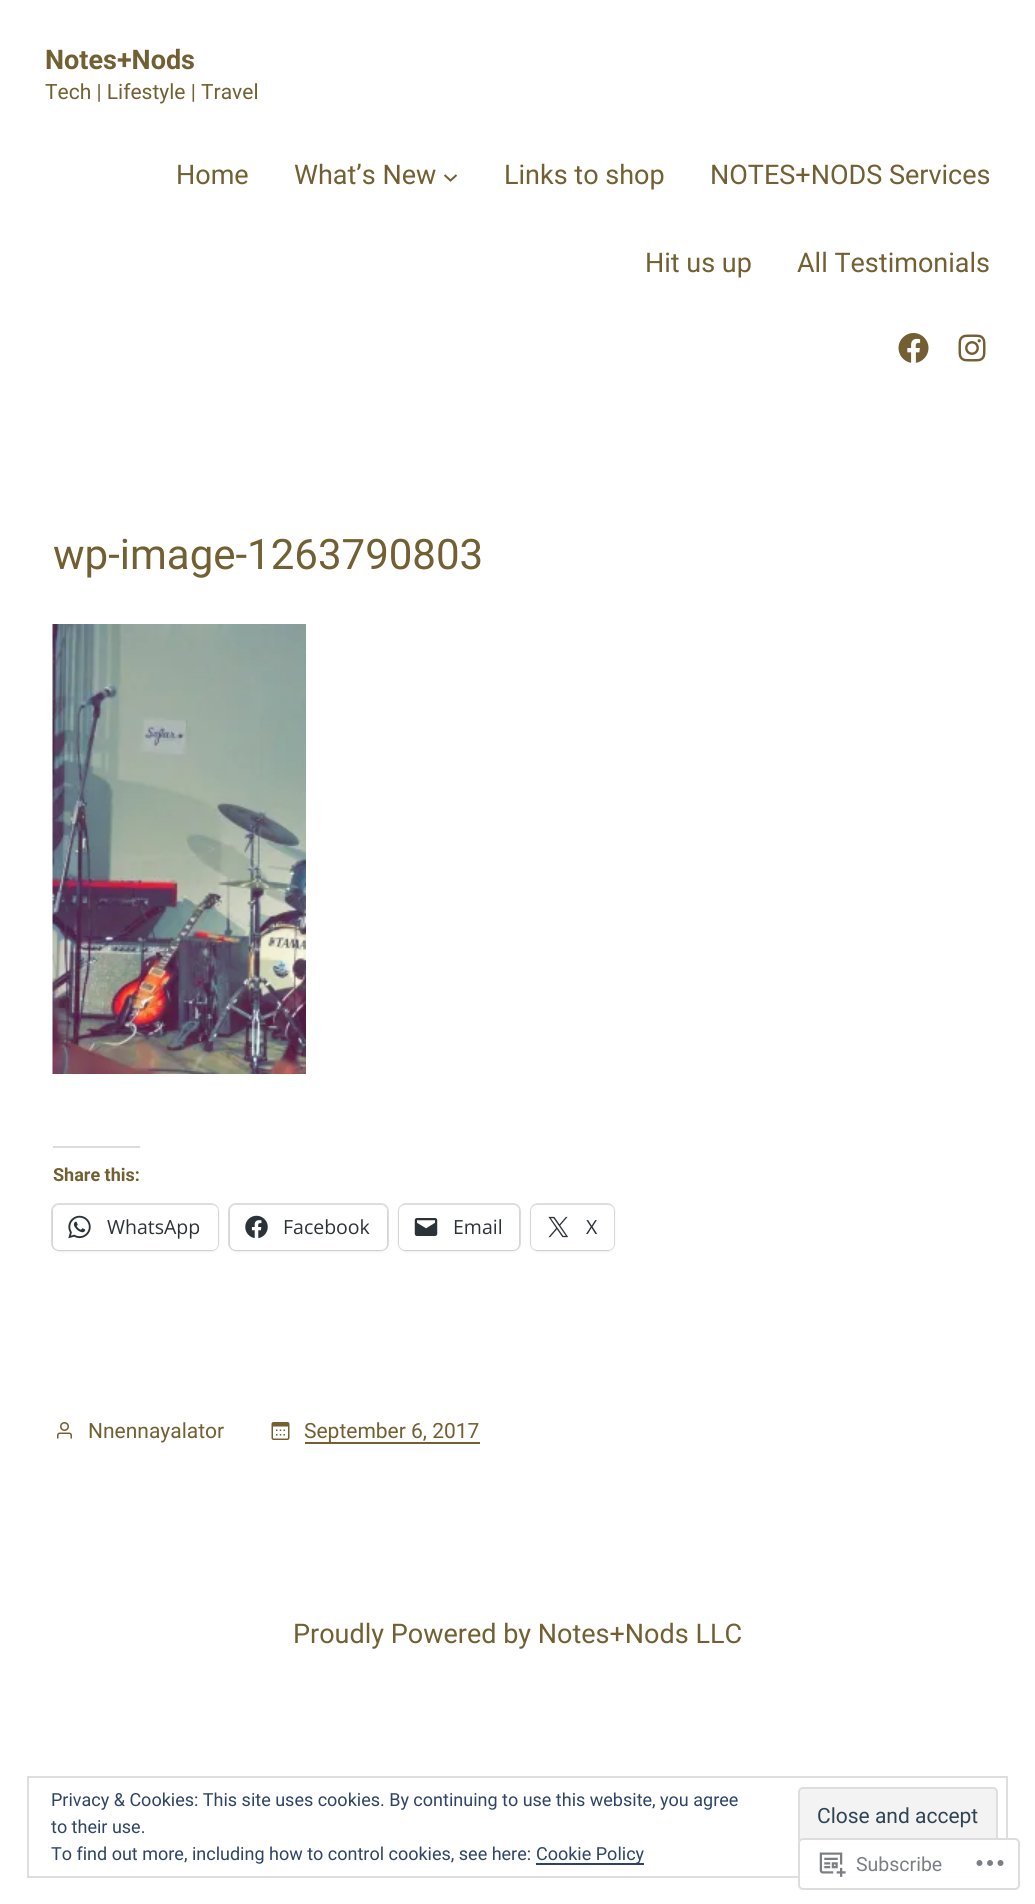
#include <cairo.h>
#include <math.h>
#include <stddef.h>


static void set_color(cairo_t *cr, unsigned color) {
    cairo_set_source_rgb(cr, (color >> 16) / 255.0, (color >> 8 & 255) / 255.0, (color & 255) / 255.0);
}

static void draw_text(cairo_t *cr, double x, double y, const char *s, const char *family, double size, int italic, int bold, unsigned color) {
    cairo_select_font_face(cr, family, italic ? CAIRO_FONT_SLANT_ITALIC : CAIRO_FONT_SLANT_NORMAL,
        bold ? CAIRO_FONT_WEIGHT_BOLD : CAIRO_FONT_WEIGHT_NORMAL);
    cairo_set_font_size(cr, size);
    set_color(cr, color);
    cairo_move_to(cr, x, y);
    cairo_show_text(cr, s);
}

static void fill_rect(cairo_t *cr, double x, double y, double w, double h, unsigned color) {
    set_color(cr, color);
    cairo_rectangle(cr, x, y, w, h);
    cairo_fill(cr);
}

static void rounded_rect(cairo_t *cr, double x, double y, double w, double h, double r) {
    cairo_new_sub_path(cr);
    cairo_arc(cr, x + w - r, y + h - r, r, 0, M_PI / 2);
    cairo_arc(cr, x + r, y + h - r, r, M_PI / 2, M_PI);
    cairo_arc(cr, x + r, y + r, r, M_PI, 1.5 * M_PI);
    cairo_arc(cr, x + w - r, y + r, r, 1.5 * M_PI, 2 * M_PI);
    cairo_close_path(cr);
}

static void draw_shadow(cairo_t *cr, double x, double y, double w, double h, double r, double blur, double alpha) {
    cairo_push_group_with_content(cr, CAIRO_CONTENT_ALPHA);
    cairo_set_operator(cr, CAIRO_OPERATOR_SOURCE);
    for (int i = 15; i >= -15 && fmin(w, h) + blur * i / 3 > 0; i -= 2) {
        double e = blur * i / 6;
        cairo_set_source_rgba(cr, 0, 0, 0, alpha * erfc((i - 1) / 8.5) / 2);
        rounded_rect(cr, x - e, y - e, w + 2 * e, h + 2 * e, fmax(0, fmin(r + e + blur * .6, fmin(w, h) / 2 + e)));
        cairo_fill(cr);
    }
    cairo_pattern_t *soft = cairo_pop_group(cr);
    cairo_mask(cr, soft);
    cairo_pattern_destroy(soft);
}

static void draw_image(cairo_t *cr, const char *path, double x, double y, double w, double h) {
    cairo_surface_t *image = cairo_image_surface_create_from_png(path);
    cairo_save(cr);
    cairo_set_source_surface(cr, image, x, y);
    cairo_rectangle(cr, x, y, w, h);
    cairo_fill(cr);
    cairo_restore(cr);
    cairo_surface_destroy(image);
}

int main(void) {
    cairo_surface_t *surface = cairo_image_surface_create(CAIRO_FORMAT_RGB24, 1035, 1904);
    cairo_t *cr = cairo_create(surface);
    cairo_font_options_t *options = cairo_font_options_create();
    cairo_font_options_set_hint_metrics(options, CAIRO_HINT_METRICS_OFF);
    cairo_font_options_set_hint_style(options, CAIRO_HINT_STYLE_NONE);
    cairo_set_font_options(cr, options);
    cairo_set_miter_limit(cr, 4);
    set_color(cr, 0xFFFFFF);
    cairo_paint(cr);
    draw_text(cr, 45, 69, "Notes+Nods", "Roboto", 27, 0, 1, 0x725F32);
    draw_text(cr, 45, 99, "Tech | Lifestyle | Travel", "Roboto", 21, 0, 0, 0x725F32);
    draw_text(cr, 176, 184, "Home", "Roboto", 27, 0, 0, 0x725F32);
    draw_text(cr, 294, 184, "What’s New", "Roboto", 27, 0, 0, 0x725F32);
    cairo_new_path(cr);
    cairo_move_to(cr, 444.5, 175);
    cairo_line_to(cr, 450.5, 180.5);
    cairo_line_to(cr, 456.5, 175);
    cairo_stroke(cr);
    draw_text(cr, 504, 184, "Links to shop", "Roboto", 27, 0, 0, 0x725F32);
    draw_text(cr, 710, 184, "NOTES+NODS Services", "Roboto", 27, 0, 0, 0x725F32);
    draw_text(cr, 645, 272, "Hit us up", "Roboto", 27, 0, 0, 0x725F32);
    draw_text(cr, 797, 272, "All Testimonials", "Roboto", 27, 0, 0, 0x725F32);
    draw_image(cr, "assets/img1.png", 898, 333, 31, 30);
    draw_image(cr, "assets/img2.png", 958, 334, 28, 28);
    draw_text(cr, 53, 569, "wp-image-1263790803", "Roboto", 42, 0, 0, 0x725F32);
    draw_image(cr, "assets/img3.png", 52, 624, 254, 450);
    fill_rect(cr, 53, 1146, 87, 2, 0xDCDCDE);
    draw_text(cr, 53, 1181, "Share this:", "Roboto", 18, 0, 1, 0x725F32);
    rounded_rect(cr, 52, 1204, 166, 46, 7);
    set_color(cr, 0xE0E0E0);
    cairo_stroke(cr);
    set_color(cr, 0x000000);
    draw_shadow(cr, 53, 1206, 165, 45, 6, 1.5, 0.12);
    set_color(cr, 0xFFFFFF);
    rounded_rect(cr, 53, 1205, 165, 45, 6);
    cairo_fill(cr);
    draw_image(cr, "assets/img4.png", 68, 1215, 23, 24);
    draw_text(cr, 107, 1234, "WhatsApp", "Open Sans", 19.5, 0, 0, 0x2C3338);
    rounded_rect(cr, 229, 1204, 159, 46, 7);
    set_color(cr, 0xE0E0E0);
    cairo_stroke(cr);
    set_color(cr, 0x000000);
    draw_shadow(cr, 230, 1206, 157, 45, 6, 1.5, 0.12);
    set_color(cr, 0xFFFFFF);
    rounded_rect(cr, 230, 1205, 157, 45, 6);
    cairo_fill(cr);
    draw_image(cr, "assets/img5.png", 245, 1215, 23, 24);
    draw_text(cr, 283, 1234, "Facebook", "Open Sans", 19.5, 0, 0, 0x2C3338);
    rounded_rect(cr, 399, 1204, 121, 46, 7);
    set_color(cr, 0xE0E0E0);
    cairo_stroke(cr);
    set_color(cr, 0x000000);
    draw_shadow(cr, 399, 1206, 120, 45, 6, 1.5, 0.12);
    set_color(cr, 0xFFFFFF);
    rounded_rect(cr, 399, 1205, 120, 45, 6);
    cairo_fill(cr);
    draw_image(cr, "assets/img6.png", 414, 1218, 24, 18);
    draw_text(cr, 453, 1234, "Email", "Open Sans", 19.5, 0, 0, 0x2C3338);
    rounded_rect(cr, 531, 1204, 83, 46, 7);
    set_color(cr, 0xE0E0E0);
    cairo_stroke(cr);
    set_color(cr, 0x000000);
    draw_shadow(cr, 531, 1206, 83, 45, 6, 1.5, 0.12);
    set_color(cr, 0xFFFFFF);
    rounded_rect(cr, 531, 1205, 83, 45, 6);
    cairo_fill(cr);
    draw_image(cr, "assets/img7.png", 548, 1216, 21, 22);
    draw_text(cr, 586, 1234, "X", "Open Sans", 19.5, 0, 0, 0x2C3338);
    draw_image(cr, "assets/img8.png", 57, 1422, 15, 17);
    draw_text(cr, 88, 1438, "Nnennayalator", "Roboto", 21, 0, 0, 0x725F32);
    draw_image(cr, "assets/img9.png", 271, 1422, 19, 18);
    fill_rect(cr, 305, 1442, 175, 2, 0x725F32);
    draw_text(cr, 304, 1438, "September 6, 2017", "Roboto", 21, 0, 0, 0x725F32);
    draw_text(cr, 293, 1643, "Proudly Powered by Notes+Nods LLC", "Roboto", 27, 0, 0, 0x725F32);
    cairo_rectangle(cr, 28, 1777, 979, 100);
    set_color(cr, 0xDEDEDE);
    cairo_stroke(cr);
    draw_text(cr, 51, 1806, "Privacy & Cookies: This site uses cookies. By continuing to use this website, you agree", "Roboto", 18, 0, 0, 0x2E4467);
    draw_text(cr, 51, 1833, "to their use.", "Roboto", 18, 0, 0, 0x2E4467);
    set_color(cr, 0xF3F3F3);
    rounded_rect(cr, 799, 1788, 198, 56, 4);
    cairo_fill_preserve(cr);
    set_color(cr, 0xDEDEDE);
    cairo_stroke(cr);
    draw_text(cr, 817, 1823, "Close and accept", "Roboto", 21, 0, 0, 0x2E4453);
    draw_text(cr, 51, 1860, "To find out more, including how to control cookies, see here:", "Roboto", 18, 0, 0, 0x2E4467);
    fill_rect(cr, 536, 1863, 108, 2, 0x2E4467);
    draw_text(cr, 536, 1860, "Cookie Policy", "Roboto", 18, 0, 0, 0x2E4467);
    cairo_set_source_rgba(cr, 1, 1, 1, 0.98);
    rounded_rect(cr, 798, 1838, 222, 52, 5);
    cairo_fill(cr);
    rounded_rect(cr, 799, 1839, 220, 50, 4);
    cairo_set_source_rgba(cr, 0.863, 0.863, 0.871, 0.98);
    cairo_stroke(cr);
    draw_image(cr, "assets/img10.png", 819, 1852, 27, 25);
    draw_text(cr, 856, 1871, "Subscribe", "Roboto", 19.5, 0, 0, 0x7B7F85);
    draw_image(cr, "assets/img11.png", 976, 1860, 28, 6);
    cairo_surface_write_to_png(surface, "output.png");
    cairo_font_options_destroy(options);
    cairo_destroy(cr);
    cairo_surface_destroy(surface);
    return 0;
}
